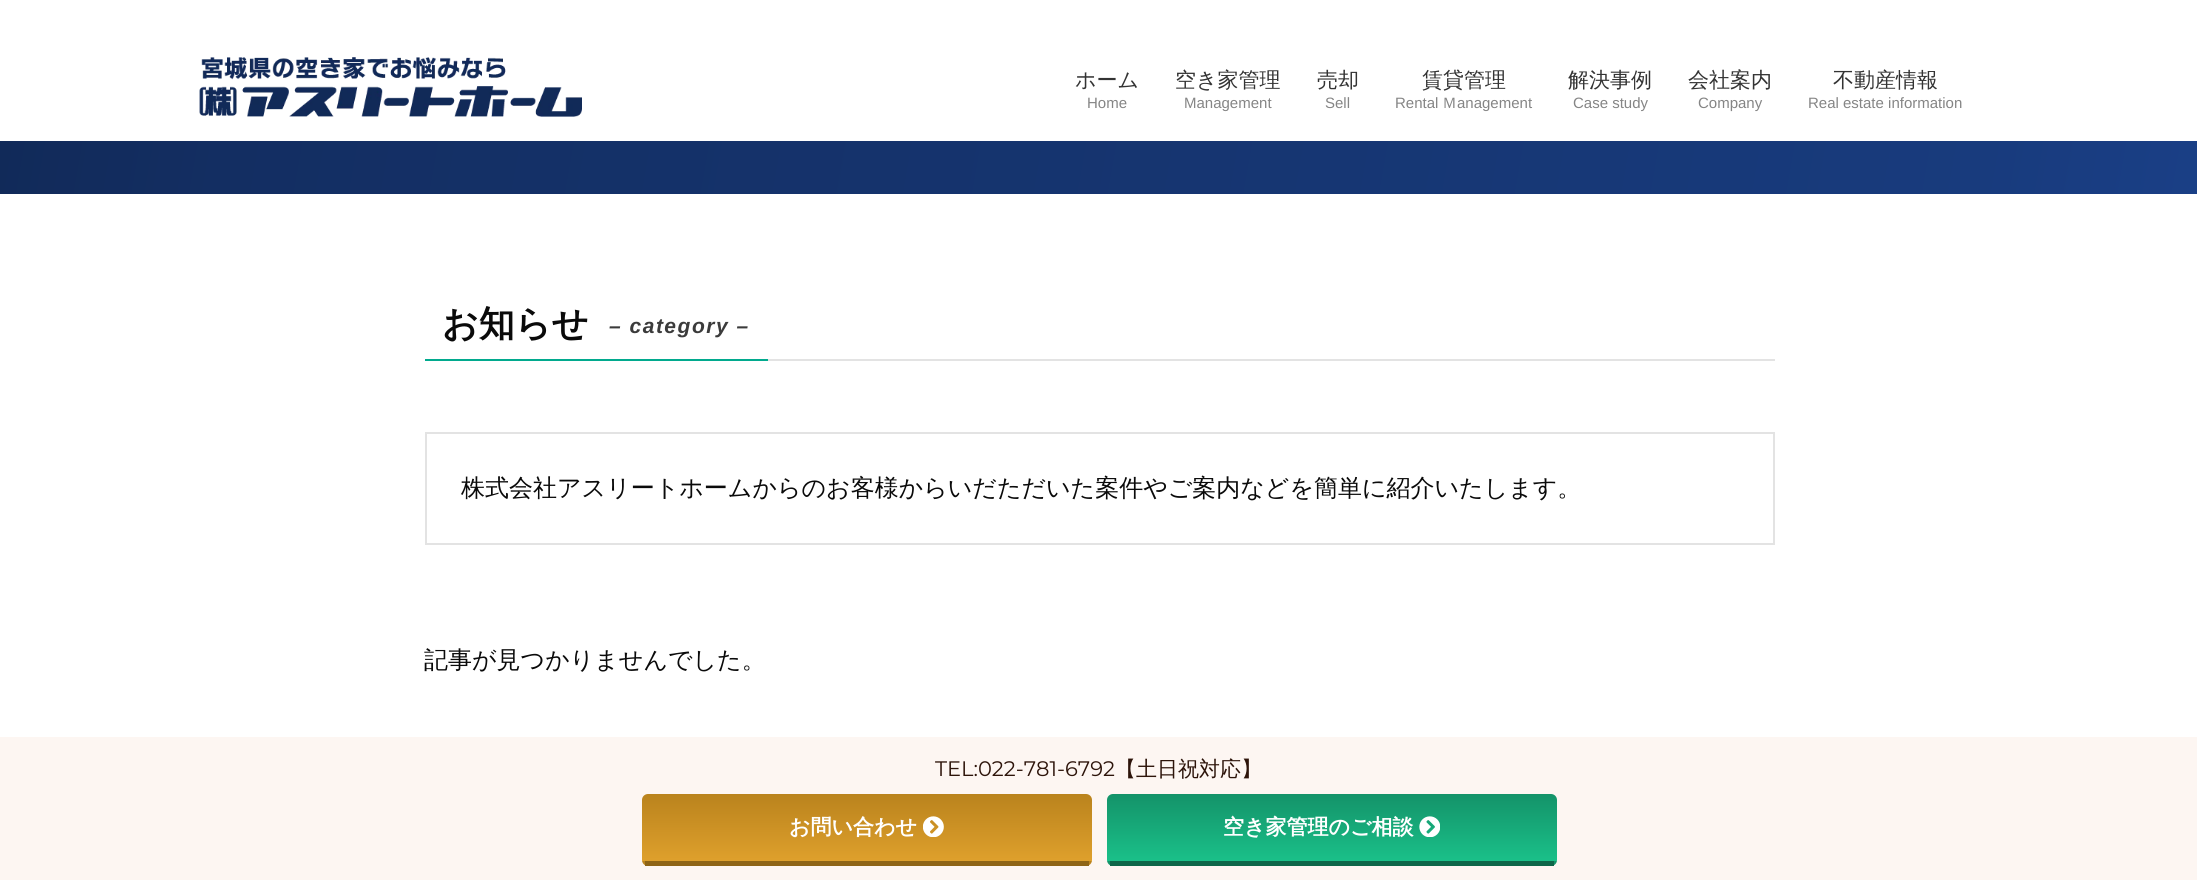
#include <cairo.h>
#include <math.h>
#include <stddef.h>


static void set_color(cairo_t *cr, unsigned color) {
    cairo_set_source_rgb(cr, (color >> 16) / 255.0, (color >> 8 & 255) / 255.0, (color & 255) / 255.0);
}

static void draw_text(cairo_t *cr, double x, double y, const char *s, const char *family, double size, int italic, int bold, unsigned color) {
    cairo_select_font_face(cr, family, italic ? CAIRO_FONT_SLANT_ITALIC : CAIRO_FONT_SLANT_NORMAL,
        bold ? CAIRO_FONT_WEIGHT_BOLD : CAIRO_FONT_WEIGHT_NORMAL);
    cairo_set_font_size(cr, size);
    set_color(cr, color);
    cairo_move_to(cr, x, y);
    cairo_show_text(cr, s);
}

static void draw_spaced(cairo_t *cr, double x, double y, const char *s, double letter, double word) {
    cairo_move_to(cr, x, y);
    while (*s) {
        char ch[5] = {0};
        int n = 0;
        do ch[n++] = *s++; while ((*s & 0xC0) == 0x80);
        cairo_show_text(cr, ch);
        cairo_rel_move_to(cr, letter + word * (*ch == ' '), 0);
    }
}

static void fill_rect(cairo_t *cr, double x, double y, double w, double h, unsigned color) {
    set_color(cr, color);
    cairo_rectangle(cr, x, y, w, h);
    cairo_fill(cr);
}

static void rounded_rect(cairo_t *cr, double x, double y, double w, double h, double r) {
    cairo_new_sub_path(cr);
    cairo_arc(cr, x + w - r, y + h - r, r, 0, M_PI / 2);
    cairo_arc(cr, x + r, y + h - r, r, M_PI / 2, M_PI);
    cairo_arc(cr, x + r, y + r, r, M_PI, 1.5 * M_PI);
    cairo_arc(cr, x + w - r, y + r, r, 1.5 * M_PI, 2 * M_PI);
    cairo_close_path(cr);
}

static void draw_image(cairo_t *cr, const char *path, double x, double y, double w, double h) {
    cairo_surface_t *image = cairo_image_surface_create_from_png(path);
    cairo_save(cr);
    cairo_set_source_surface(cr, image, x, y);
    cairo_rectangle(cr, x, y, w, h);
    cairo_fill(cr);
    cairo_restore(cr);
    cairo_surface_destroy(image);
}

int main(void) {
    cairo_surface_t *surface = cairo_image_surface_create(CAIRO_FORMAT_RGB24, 2197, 880);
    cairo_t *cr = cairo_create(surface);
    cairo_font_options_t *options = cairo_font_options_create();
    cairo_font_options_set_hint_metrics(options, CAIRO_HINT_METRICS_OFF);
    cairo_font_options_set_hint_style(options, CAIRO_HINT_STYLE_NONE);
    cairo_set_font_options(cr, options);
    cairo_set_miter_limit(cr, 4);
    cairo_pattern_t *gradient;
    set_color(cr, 0xFFFFFF);
    cairo_paint(cr);
    draw_image(cr, "assets/img1.png", 199, 57, 383, 60);
    draw_text(cr, 1075, 87, "ホーム", "WenQuanYi Zen Hei Medium", 21, 0, 0, 0x333333);
    draw_text(cr, 1087, 108, "Home", "Liberation Sans", 15, 0, 0, 0x858585);
    draw_text(cr, 1175, 87, "空き家管理", "WenQuanYi Zen Hei Medium", 21, 0, 0, 0x333333);
    draw_text(cr, 1184, 108, "Management", "Liberation Sans", 15, 0, 0, 0x858585);
    draw_text(cr, 1317, 87, "売却", "WenQuanYi Zen Hei Medium", 21, 0, 0, 0x333333);
    draw_text(cr, 1325, 108, "Sell", "Liberation Sans", 15, 0, 0, 0x858585);
    draw_text(cr, 1422, 87, "賃貸管理", "WenQuanYi Zen Hei Medium", 21, 0, 0, 0x333333);
    draw_text(cr, 1395, 108, "Rental", "Liberation Sans", 15, 0, 0, 0x858585);
    draw_text(cr, 1442, 108, "Ｍ", "WenQuanYi Zen Hei Medium", 15, 0, 0, 0x858585);
    draw_text(cr, 1457, 108, "anagement", "Liberation Sans", 15, 0, 0, 0x858585);
    draw_text(cr, 1568, 87, "解決事例", "WenQuanYi Zen Hei Medium", 21, 0, 0, 0x333333);
    draw_text(cr, 1573, 108, "Case study", "Liberation Sans", 15, 0, 0, 0x858585);
    draw_text(cr, 1688, 87, "会社案内", "WenQuanYi Zen Hei Medium", 21, 0, 0, 0x333333);
    draw_text(cr, 1698, 108, "Company", "Liberation Sans", 15, 0, 0, 0x858585);
    draw_text(cr, 1833, 87, "不動産情報", "WenQuanYi Zen Hei Medium", 21, 0, 0, 0x333333);
    draw_text(cr, 1808, 108, "Real estate information", "Liberation Sans", 15, 0, 0, 0x858585);
    gradient = cairo_pattern_create_linear(29, -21, 2169, 356);
    cairo_pattern_add_color_stop_rgba(gradient, 0, 0.067, 0.165, 0.349, 1);
    cairo_pattern_add_color_stop_rgba(gradient, 0.1, 0.075, 0.18, 0.384, 1);
    cairo_pattern_add_color_stop_rgba(gradient, 0.9, 0.094, 0.231, 0.49, 1);
    cairo_pattern_add_color_stop_rgba(gradient, 1, 0.102, 0.247, 0.525, 1);
    cairo_set_source(cr, gradient);
    cairo_pattern_destroy(gradient);
    cairo_rectangle(cr, 0, 141, 2197, 53);
    cairo_fill(cr);
    fill_rect(cr, 768, 359, 1007, 2, 0xE3E3E3);
    fill_rect(cr, 425, 359, 343, 2, 0x01AA8E);
    draw_text(cr, 442, 336, "お知らせ", "WenQuanYi Zen Hei", 36, 0, 1, 0x0A0A0A);
    cairo_select_font_face(cr, "Liberation Sans", CAIRO_FONT_SLANT_ITALIC, CAIRO_FONT_WEIGHT_BOLD);
    cairo_set_font_size(cr, 21);
    set_color(cr, 0x3B3B3B);
    draw_spaced(cr, 609, 333, "– category –", 1.5, 0);
    cairo_rectangle(cr, 426, 433, 1348, 111);
    set_color(cr, 0xE3E3E3);
    cairo_stroke(cr);
    draw_text(cr, 461, 496, "株式会社アスリートホームからのお客様からいだただいた案件やご案内などを簡単に紹介いたします。", "WenQuanYi Zen Hei Medium", 24, 0, 0, 0x0A0A0A);
    draw_text(cr, 424, 668, "記事が見つかりませんでした。", "WenQuanYi Zen Hei Medium", 24, 0, 0, 0x0A0A0A);
    fill_rect(cr, 0, 737, 2197, 143, 0xFDF6F2);
    draw_text(cr, 935, 776, "TEL:022-781-6792", "Montserrat Thin", 21, 0, 0, 0x2D140A);
    draw_text(cr, 1115, 776, "【土日祝対応】", "WenQuanYi Zen Hei Medium", 21, 0, 0, 0x2D140A);
    cairo_save(cr);
    rounded_rect(cr, 642, 794, 450, 72, 6);
    cairo_clip(cr);
    gradient = cairo_pattern_create_linear(867, 794, 867, 861);
    cairo_pattern_add_color_stop_rgba(gradient, 0, 0.729, 0.514, 0.114, 1);
    cairo_pattern_add_color_stop_rgba(gradient, 1, 0.871, 0.627, 0.173, 1);
    cairo_set_source(cr, gradient);
    cairo_pattern_destroy(gradient);
    cairo_new_path(cr);
    cairo_move_to(cr, 648, 794);
    cairo_line_to(cr, 1086, 794);
    cairo_curve_to(cr, 1089.5, 794, 1092, 796.5, 1092, 800);
    cairo_line_to(cr, 1092, 861);
    cairo_line_to(cr, 642, 861);
    cairo_line_to(cr, 642, 800);
    cairo_curve_to(cr, 642, 796.5, 644.5, 794, 648, 794);
    cairo_close_path(cr);
    cairo_fill(cr);
    gradient = cairo_pattern_create_linear(867, 861, 867, 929);
    cairo_pattern_add_color_stop_rgba(gradient, 0, 0.729, 0.514, 0.114, 1);
    cairo_pattern_add_color_stop_rgba(gradient, 1, 0.871, 0.627, 0.173, 1);
    cairo_set_source(cr, gradient);
    cairo_pattern_destroy(gradient);
    cairo_rectangle(cr, 642, 861, 450, 5);
    cairo_fill(cr);
    cairo_restore(cr);
    fill_rect(cr, 645, 861, 444, 5, 0x8E6416);
    draw_text(cr, 789, 834, "お問い合わせ", "WenQuanYi Zen Hei", 21, 0, 1, 0xFFFFFF);
    draw_image(cr, "assets/img2.png", 923, 816, 21, 21);
    cairo_save(cr);
    rounded_rect(cr, 1107, 794, 450, 72, 6);
    cairo_clip(cr);
    gradient = cairo_pattern_create_linear(1332, 794, 1332, 861);
    cairo_pattern_add_color_stop_rgba(gradient, 0, 0.078, 0.576, 0.412, 1);
    cairo_pattern_add_color_stop_rgba(gradient, 1, 0.102, 0.753, 0.537, 1);
    cairo_set_source(cr, gradient);
    cairo_pattern_destroy(gradient);
    cairo_new_path(cr);
    cairo_move_to(cr, 1113, 794);
    cairo_line_to(cr, 1551, 794);
    cairo_curve_to(cr, 1554.5, 794, 1557, 796.5, 1557, 800);
    cairo_line_to(cr, 1557, 861);
    cairo_line_to(cr, 1107, 861);
    cairo_line_to(cr, 1107, 800);
    cairo_curve_to(cr, 1107, 796.5, 1109.5, 794, 1113, 794);
    cairo_close_path(cr);
    cairo_fill(cr);
    gradient = cairo_pattern_create_linear(1332, 861, 1332, 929);
    cairo_pattern_add_color_stop_rgba(gradient, 0, 0.078, 0.576, 0.412, 1);
    cairo_pattern_add_color_stop_rgba(gradient, 1, 0.102, 0.753, 0.537, 1);
    cairo_set_source(cr, gradient);
    cairo_pattern_destroy(gradient);
    cairo_rectangle(cr, 1107, 861, 450, 5);
    cairo_fill(cr);
    cairo_restore(cr);
    fill_rect(cr, 1110, 861, 444, 5, 0x0E6649);
    draw_text(cr, 1223, 834, "空き家管理のご相談", "WenQuanYi Zen Hei", 21, 0, 1, 0xFFFFFF);
    draw_image(cr, "assets/img3.png", 1419, 816, 21, 21);
    cairo_surface_write_to_png(surface, "output.png");
    cairo_font_options_destroy(options);
    cairo_destroy(cr);
    cairo_surface_destroy(surface);
    return 0;
}
